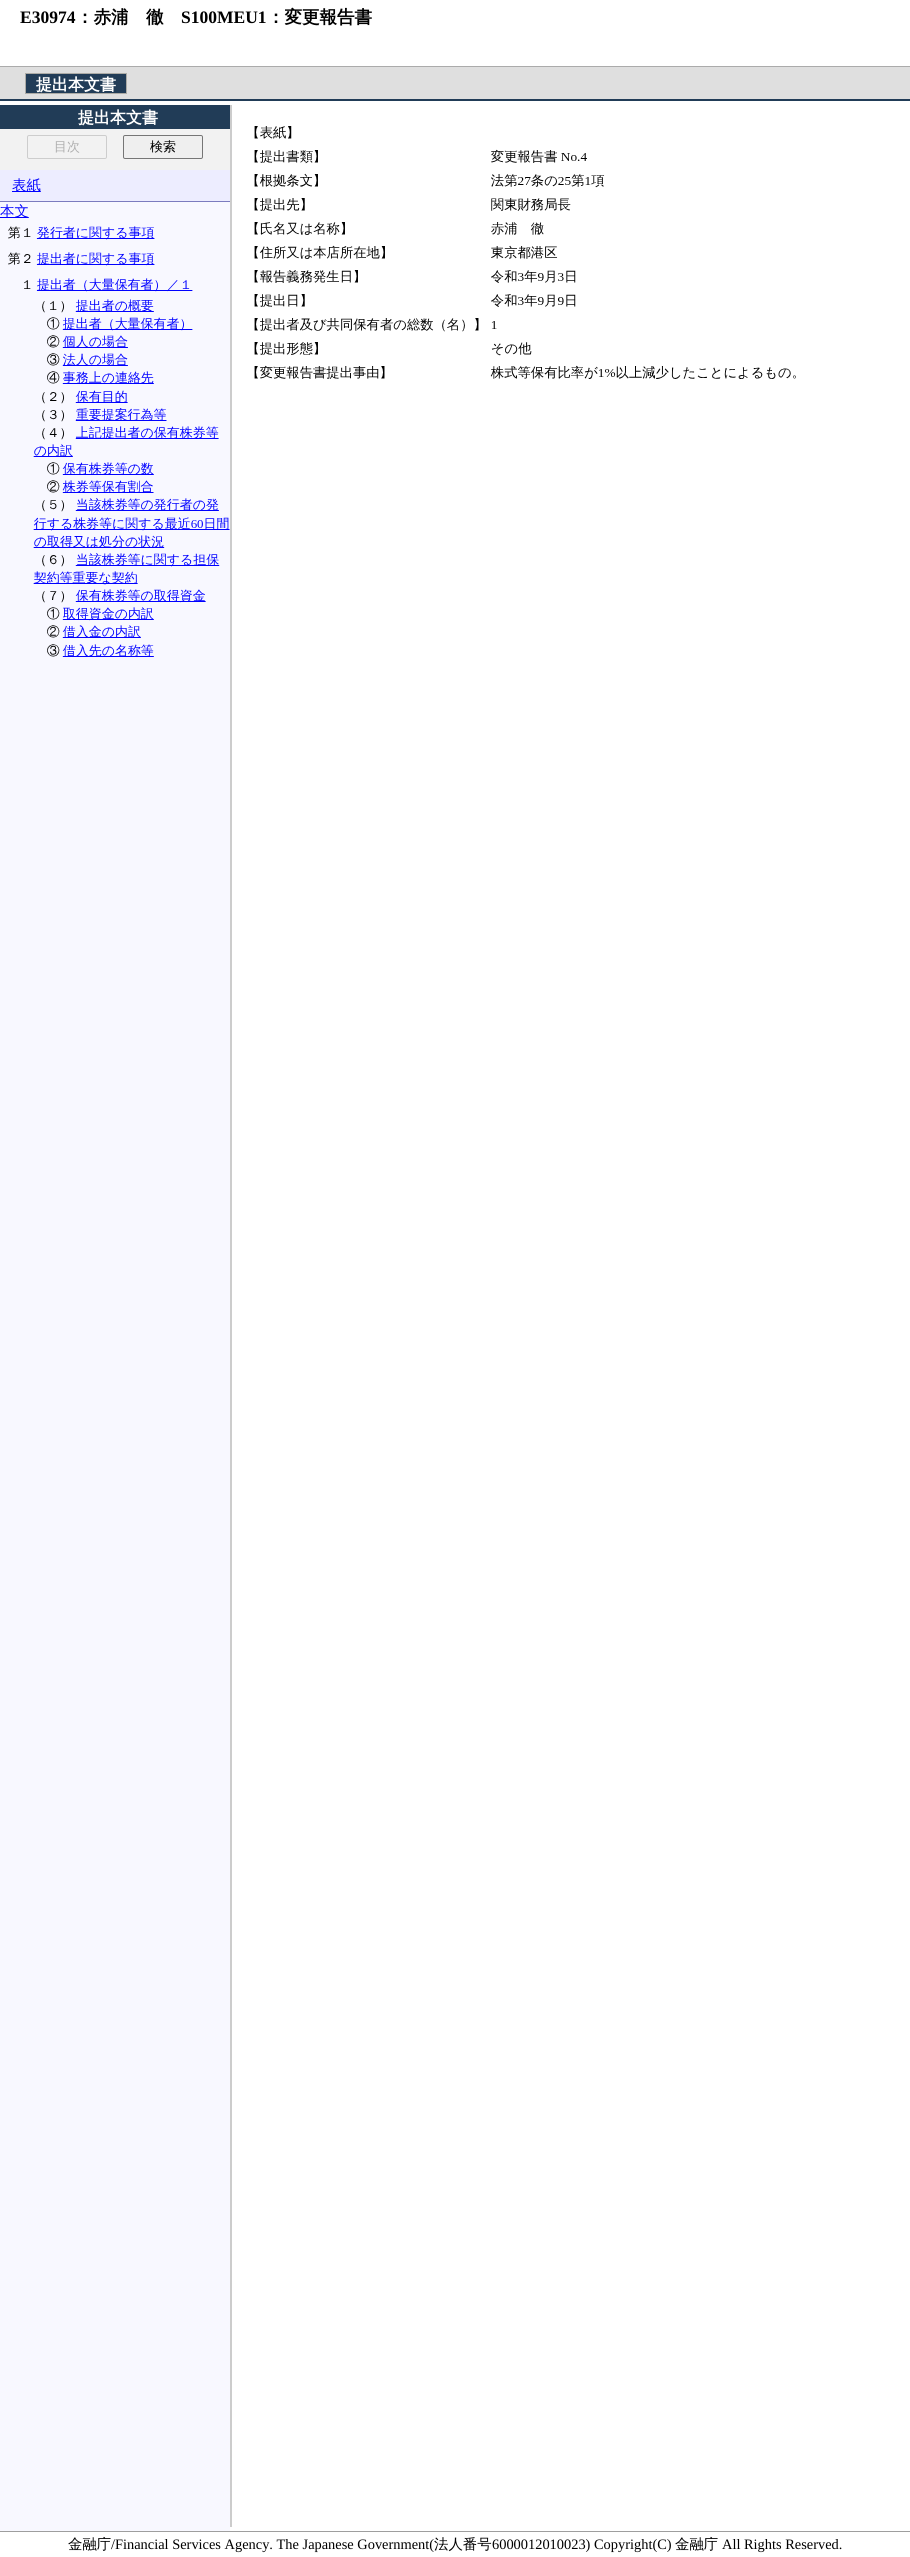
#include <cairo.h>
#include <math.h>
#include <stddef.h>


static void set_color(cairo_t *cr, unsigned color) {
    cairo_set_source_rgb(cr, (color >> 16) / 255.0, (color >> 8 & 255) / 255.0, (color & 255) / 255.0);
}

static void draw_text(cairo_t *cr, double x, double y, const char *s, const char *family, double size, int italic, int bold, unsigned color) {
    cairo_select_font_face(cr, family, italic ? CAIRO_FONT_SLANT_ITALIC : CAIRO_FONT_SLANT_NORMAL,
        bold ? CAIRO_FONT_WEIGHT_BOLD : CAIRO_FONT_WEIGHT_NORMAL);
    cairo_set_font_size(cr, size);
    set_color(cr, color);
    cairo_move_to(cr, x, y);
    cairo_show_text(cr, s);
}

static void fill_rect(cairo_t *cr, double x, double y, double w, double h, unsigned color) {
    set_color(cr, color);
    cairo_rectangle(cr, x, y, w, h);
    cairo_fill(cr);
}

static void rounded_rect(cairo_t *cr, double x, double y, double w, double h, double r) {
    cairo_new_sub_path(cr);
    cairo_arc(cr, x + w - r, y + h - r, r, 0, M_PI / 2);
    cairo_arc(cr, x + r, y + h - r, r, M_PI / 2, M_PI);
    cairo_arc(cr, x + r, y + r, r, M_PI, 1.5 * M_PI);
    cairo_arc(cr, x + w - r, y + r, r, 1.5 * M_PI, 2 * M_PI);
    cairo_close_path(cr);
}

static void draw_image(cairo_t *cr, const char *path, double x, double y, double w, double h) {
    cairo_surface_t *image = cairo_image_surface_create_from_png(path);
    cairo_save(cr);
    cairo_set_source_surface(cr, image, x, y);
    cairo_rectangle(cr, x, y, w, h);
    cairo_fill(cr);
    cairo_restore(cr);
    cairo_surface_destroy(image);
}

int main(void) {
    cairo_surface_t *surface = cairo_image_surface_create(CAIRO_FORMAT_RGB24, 910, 2557);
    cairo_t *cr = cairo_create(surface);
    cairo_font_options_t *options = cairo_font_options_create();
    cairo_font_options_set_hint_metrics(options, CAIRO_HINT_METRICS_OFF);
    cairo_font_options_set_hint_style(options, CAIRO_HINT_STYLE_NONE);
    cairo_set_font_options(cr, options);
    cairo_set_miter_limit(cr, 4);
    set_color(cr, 0xFFFFFF);
    cairo_paint(cr);
    draw_text(cr, 20, 23, "E30974", "Liberation Serif", 17.5, 0, 1, 0x000000);
    draw_text(cr, 76, 23, "：赤浦　徹", "WenQuanYi Zen Hei", 17.5, 0, 1, 0x000000);
    draw_text(cr, 181, 23, "S100MEU1", "Liberation Serif", 17.5, 0, 1, 0x000000);
    draw_text(cr, 267, 23, "：変更報告書", "WenQuanYi Zen Hei", 17.5, 0, 1, 0x000000);
    fill_rect(cr, 0, 67, 910, 32, 0xDFDFDF);
    fill_rect(cr, 0, 66, 910, 1, 0xABABAB);
    fill_rect(cr, 0, 99, 910, 2, 0x213C57);
    cairo_rectangle(cr, 25.5, 73.5, 101, 20);
    cairo_fill_preserve(cr);
    set_color(cr, 0xACABA6);
    cairo_set_line_width(cr, 1);
    cairo_stroke(cr);
    draw_text(cr, 36, 90, "提出本文書", "WenQuanYi Zen Hei", 16, 0, 1, 0xFFFFFF);
    fill_rect(cr, 0, 129, 230, 41, 0xF2F2F2);
    fill_rect(cr, 0, 105, 230, 24, 0x213C57);
    draw_text(cr, 78, 123, "提出本文書", "WenQuanYi Zen Hei", 16, 0, 1, 0xFFFFFF);
    fill_rect(cr, 230, 105, 2, 2422, 0xCCCCCC);
    draw_image(cr, "assets/img1.png", 254, 126, 542, 253);
    rounded_rect(cr, 27.5, 135.5, 79, 23, 1.5);
    set_color(cr, 0xCDCDCD);
    cairo_stroke(cr);
    draw_text(cr, 54, 151, "目次", "WenQuanYi Zen Hei Medium", 13, 0, 0, 0xAEAEAE);
    set_color(cr, 0xEFEFEF);
    rounded_rect(cr, 123.5, 135.5, 79, 23, 1.5);
    cairo_fill_preserve(cr);
    set_color(cr, 0x767676);
    cairo_stroke(cr);
    draw_text(cr, 150, 151, "検索", "WenQuanYi Zen Hei Medium", 13, 0, 0, 0x000000);
    draw_image(cr, "assets/img2.png", 0, 170, 230, 2361);
    fill_rect(cr, 0, 2531, 910, 1, 0x9E9E9E);
    draw_text(cr, 68, 2549, "金融庁", "WenQuanYi Zen Hei Medium", 14.4, 0, 0, 0x000000);
    draw_text(cr, 111, 2549, "/Financial Services Agency. The Japanese Government(", "Liberation Serif", 14.4, 0, 0, 0x000000);
    draw_text(cr, 434, 2549, "法人番号", "WenQuanYi Zen Hei Medium", 14.4, 0, 0, 0x000000);
    draw_text(cr, 492, 2549, "6000012010023) Copyright(C)", "Liberation Serif", 14.4, 0, 0, 0x000000);
    draw_text(cr, 675, 2549, "金融庁", "WenQuanYi Zen Hei Medium", 14.4, 0, 0, 0x000000);
    draw_text(cr, 722, 2549, "All Rights Reserved.", "Liberation Serif", 14.4, 0, 0, 0x000000);
    cairo_surface_write_to_png(surface, "output.png");
    cairo_font_options_destroy(options);
    cairo_destroy(cr);
    cairo_surface_destroy(surface);
    return 0;
}
